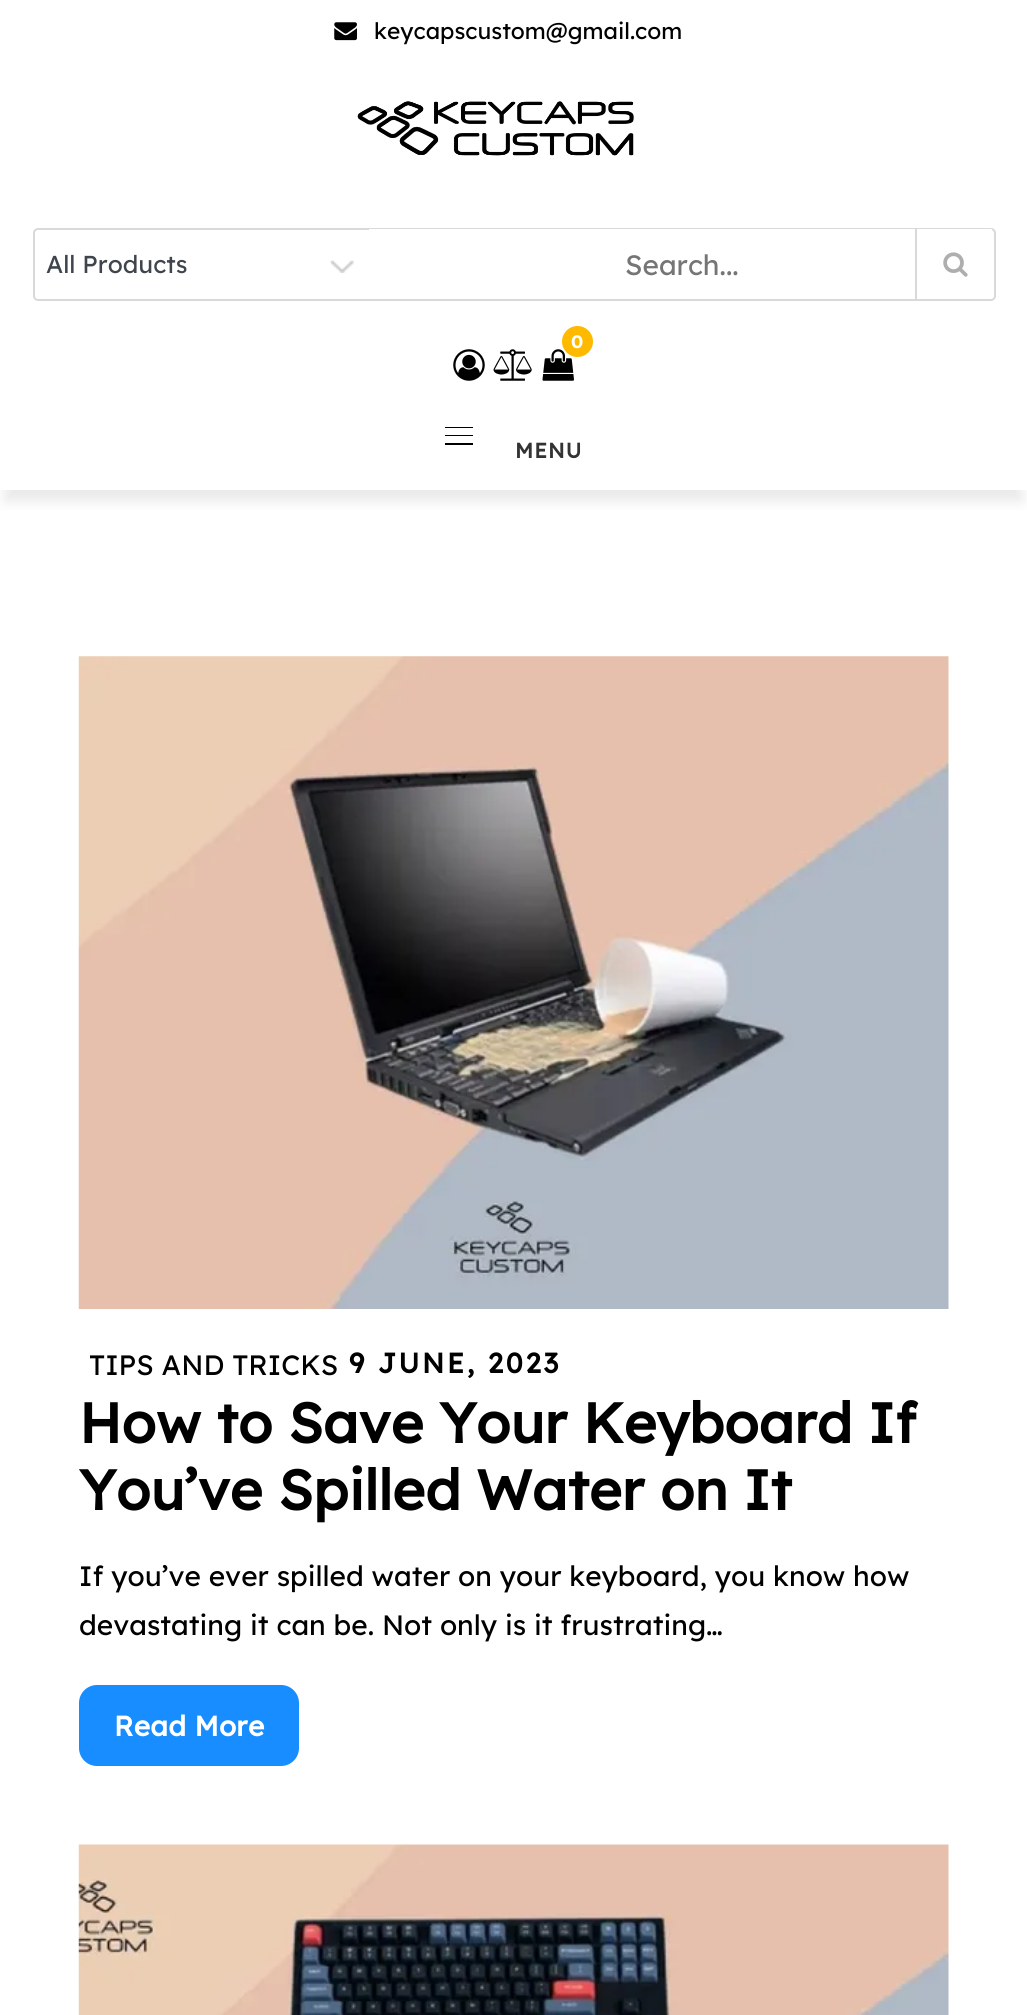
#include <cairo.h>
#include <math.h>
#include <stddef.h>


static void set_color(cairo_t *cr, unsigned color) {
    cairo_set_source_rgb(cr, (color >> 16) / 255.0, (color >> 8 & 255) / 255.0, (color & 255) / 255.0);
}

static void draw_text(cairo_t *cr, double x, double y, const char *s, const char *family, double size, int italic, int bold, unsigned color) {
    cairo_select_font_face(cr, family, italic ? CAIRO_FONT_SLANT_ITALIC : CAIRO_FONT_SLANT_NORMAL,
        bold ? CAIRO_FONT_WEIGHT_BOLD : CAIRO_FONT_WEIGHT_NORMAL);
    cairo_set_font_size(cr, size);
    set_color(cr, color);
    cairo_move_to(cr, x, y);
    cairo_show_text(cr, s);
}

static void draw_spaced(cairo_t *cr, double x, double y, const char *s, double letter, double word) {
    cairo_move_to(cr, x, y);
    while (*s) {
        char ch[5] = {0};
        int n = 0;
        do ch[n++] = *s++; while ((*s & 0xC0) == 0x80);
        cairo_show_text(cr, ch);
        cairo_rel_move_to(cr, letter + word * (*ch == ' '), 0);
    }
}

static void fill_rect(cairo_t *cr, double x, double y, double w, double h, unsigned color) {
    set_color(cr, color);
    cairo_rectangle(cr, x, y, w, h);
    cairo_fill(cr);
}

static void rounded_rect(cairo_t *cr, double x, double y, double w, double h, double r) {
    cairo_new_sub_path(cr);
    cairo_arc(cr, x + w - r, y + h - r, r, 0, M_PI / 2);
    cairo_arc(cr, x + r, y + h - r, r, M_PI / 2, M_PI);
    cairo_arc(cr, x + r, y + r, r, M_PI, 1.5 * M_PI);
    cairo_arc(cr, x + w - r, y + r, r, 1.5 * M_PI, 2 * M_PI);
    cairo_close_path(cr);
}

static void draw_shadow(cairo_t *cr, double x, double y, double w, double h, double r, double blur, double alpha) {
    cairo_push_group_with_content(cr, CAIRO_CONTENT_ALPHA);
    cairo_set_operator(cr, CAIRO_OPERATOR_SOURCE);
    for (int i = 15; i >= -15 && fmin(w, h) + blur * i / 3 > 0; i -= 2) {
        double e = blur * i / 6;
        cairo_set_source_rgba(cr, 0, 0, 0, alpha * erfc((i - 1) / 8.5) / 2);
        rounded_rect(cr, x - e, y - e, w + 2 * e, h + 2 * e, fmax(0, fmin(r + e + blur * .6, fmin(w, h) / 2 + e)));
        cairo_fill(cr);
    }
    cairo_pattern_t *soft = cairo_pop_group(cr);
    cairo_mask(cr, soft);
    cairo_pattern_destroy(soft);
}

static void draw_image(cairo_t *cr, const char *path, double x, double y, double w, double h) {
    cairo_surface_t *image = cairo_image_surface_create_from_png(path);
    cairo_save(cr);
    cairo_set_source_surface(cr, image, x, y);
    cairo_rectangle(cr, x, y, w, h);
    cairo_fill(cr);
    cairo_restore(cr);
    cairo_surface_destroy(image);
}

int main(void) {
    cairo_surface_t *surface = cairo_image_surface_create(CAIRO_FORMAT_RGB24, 1027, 2015);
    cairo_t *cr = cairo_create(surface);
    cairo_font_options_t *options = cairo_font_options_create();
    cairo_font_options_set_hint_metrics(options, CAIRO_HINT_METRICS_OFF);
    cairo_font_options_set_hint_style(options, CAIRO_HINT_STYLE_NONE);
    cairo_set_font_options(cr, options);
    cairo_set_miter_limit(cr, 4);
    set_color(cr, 0xFFFFFF);
    cairo_paint(cr);
    cairo_save(cr);
    cairo_rectangle(cr, 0, 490, 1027, 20);
    cairo_clip(cr);
    set_color(cr, 0x828282);
    draw_shadow(cr, 5, 21, 1017, 480, 0, 7, 0.18);
    cairo_restore(cr);
    draw_image(cr, "assets/img1.png", 334, 22, 23, 19);
    draw_text(cr, 374, 39, "keycapscustom@gmail.com", "Lexend Deca", 22.75, 0, 0, 0x000000);
    draw_image(cr, "assets/img2.png", 357, 101, 277, 55);
    rounded_rect(cr, 34, 229, 961, 71, 4);
    set_color(cr, 0xD9D9D9);
    cairo_stroke(cr);
    draw_image(cr, "assets/img3.png", 330, 260, 24, 13);
    draw_text(cr, 46, 273, "All Products", "Lexend Deca", 24.5, 0, 0, 0x3F444D);
    fill_rect(cr, 369, 229, 623, 70, 0xFFFFFF);
    draw_text(cr, 625, 275, "Search...", "Lexend Deca", 28, 0, 0, 0x757575);
    fill_rect(cr, 915, 229, 2, 70, 0xD9D9D9);
    draw_image(cr, "assets/img4.png", 943, 252, 25, 25);
    draw_image(cr, "assets/img5.png", 542, 349, 32, 32);
    set_color(cr, 0xFFBA00);
    cairo_arc(cr, 577.5, 341.5, 15.5, 0, 2 * M_PI);
    cairo_fill(cr);
    draw_text(cr, 571, 348, "0", "Montserrat", 18, 0, 1, 0xFFFFFF);
    draw_image(cr, "assets/img6.png", 453, 349, 32, 32);
    draw_image(cr, "assets/img7.png", 493, 349, 39, 32);
    fill_rect(cr, 445, 427, 28, 1, 0x000000);
    fill_rect(cr, 445, 435, 28, 1, 0x000000);
    fill_rect(cr, 445, 443, 28, 2, 0x000000);
    cairo_select_font_face(cr, "Lexend Deca", CAIRO_FONT_SLANT_NORMAL, CAIRO_FONT_WEIGHT_BOLD);
    cairo_set_font_size(cr, 21);
    set_color(cr, 0x333333);
    draw_spaced(cr, 515, 458, "MENU", 1, 0);
    draw_image(cr, "assets/img8.png", 78, 656, 871, 653);
    draw_text(cr, 89, 1375, "TIPS AND TRICKS", "Lexend Deca", 28, 0, 0, 0x000000);
    cairo_select_font_face(cr, "Lexend Deca", CAIRO_FONT_SLANT_NORMAL, CAIRO_FONT_WEIGHT_BOLD);
    draw_spaced(cr, 349, 1373, "9 JUNE, 2023", 2.75, 0);
    draw_text(cr, 79, 1443, "How to Save Your Keyboard If", "Lexend Deca", 56, 0, 1, 0x000000);
    draw_text(cr, 79, 1510, "You’ve Spilled Water on It", "Lexend Deca", 56, 0, 1, 0x000000);
    draw_text(cr, 79, 1586, "If you’ve ever spilled water on your keyboard, you know how", "Lexend Deca", 28, 0, 0, 0x000000);
    draw_text(cr, 79, 1635, "devastating it can be. Not only is it frustrating…", "Lexend Deca", 28, 0, 0, 0x000000);
    set_color(cr, 0x178DFF);
    rounded_rect(cr, 79, 1685, 220, 81, 18);
    cairo_fill(cr);
    cairo_select_font_face(cr, "Lexend Deca", CAIRO_FONT_SLANT_NORMAL, CAIRO_FONT_WEIGHT_BOLD);
    set_color(cr, 0xFFFFFF);
    draw_spaced(cr, 114, 1736, "Read More", 0.25, 0);
    draw_image(cr, "assets/img9.png", 78, 1844, 871, 171);
    cairo_surface_write_to_png(surface, "output.png");
    cairo_font_options_destroy(options);
    cairo_destroy(cr);
    cairo_surface_destroy(surface);
    return 0;
}
